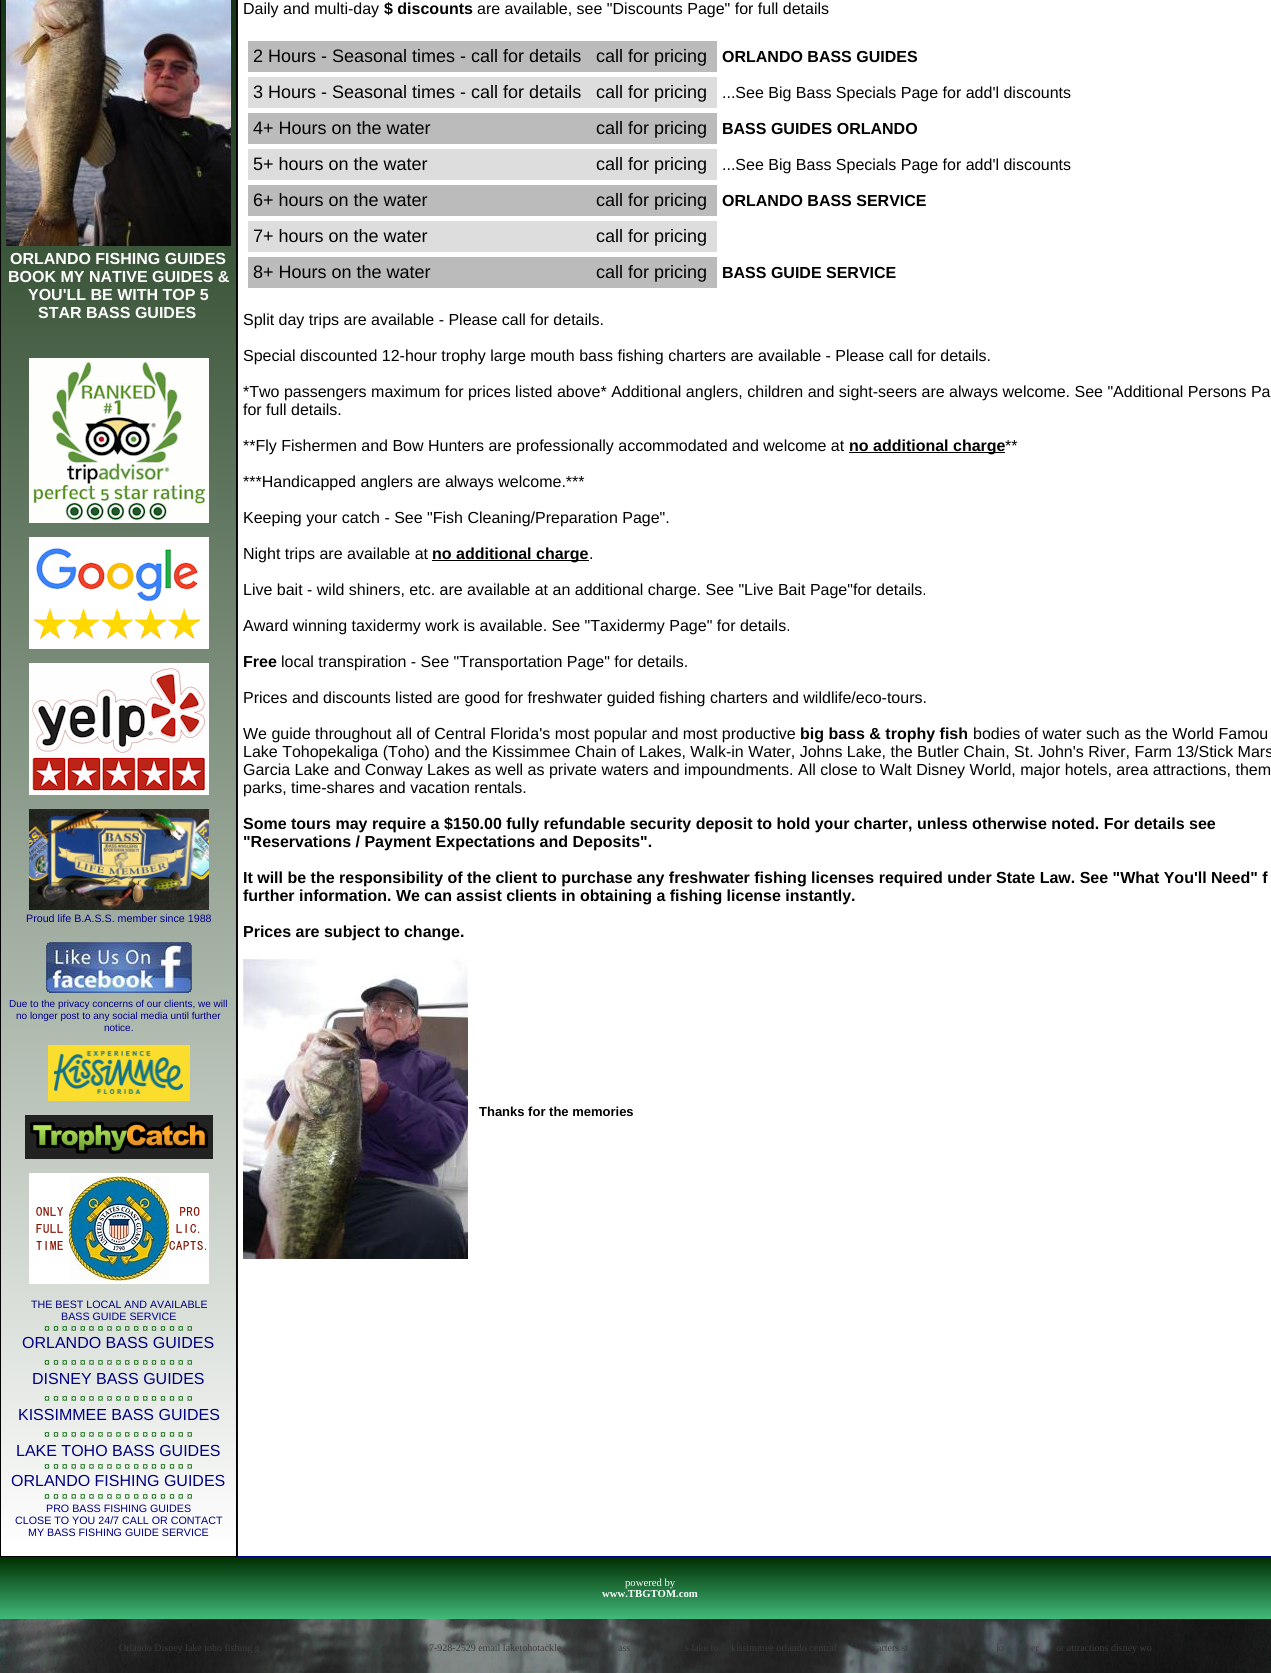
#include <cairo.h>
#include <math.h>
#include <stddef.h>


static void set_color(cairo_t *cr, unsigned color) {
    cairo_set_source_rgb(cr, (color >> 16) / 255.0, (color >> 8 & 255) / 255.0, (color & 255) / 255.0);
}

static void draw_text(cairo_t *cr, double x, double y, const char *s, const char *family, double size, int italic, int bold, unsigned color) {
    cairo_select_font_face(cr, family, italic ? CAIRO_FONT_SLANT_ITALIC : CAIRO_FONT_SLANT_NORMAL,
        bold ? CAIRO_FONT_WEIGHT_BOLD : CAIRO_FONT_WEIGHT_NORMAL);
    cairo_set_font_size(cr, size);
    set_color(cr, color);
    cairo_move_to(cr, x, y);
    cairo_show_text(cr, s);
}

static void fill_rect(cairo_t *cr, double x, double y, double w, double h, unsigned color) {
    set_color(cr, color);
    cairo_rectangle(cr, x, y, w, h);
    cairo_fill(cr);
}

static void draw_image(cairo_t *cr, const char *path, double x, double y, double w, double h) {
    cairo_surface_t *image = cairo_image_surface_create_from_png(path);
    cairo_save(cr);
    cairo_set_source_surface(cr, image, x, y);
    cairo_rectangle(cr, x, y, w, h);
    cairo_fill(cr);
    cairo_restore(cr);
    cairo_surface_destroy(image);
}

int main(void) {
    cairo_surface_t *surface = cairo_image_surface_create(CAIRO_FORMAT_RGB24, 1271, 1673);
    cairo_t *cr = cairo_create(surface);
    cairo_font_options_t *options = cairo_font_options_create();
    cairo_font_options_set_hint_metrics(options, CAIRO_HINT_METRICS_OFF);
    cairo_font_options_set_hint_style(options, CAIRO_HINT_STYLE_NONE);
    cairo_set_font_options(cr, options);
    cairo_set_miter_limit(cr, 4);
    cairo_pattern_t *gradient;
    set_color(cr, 0xFFFFFF);
    cairo_paint(cr);
    gradient = cairo_pattern_create_linear(118, -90, 119, 1556);
    cairo_pattern_add_color_stop_rgba(gradient, 0, 0.031, 0.161, 0.024, 1);
    cairo_pattern_add_color_stop_rgba(gradient, 1, 1, 1, 1, 1);
    cairo_set_source(cr, gradient);
    cairo_pattern_destroy(gradient);
    cairo_rectangle(cr, 1, 0, 235, 1540);
    cairo_fill(cr);
    cairo_rectangle(cr, 0.5, -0.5, 236, 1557);
    set_color(cr, 0x000000);
    cairo_set_line_width(cr, 1);
    cairo_stroke(cr);
    draw_image(cr, "assets/img1.png", 6, 0, 225, 246);
    draw_text(cr, 10, 264, "ORLANDO FISHING GUIDES", "Liberation Sans", 16, 0, 1, 0xFFFFFF);
    draw_text(cr, 8, 282, "BOOK MY NATIVE GUIDES &", "Liberation Sans", 16, 0, 1, 0xFFFFFF);
    draw_text(cr, 28, 300, "YOU'LL BE WITH TOP 5", "Liberation Sans", 16, 0, 1, 0xFFFFFF);
    draw_text(cr, 38, 318, "STAR BASS GUIDES", "Liberation Sans", 16, 0, 1, 0xFFFFFF);
    draw_image(cr, "assets/img2.png", 29, 358, 180, 165);
    draw_image(cr, "assets/img3.png", 29, 537, 180, 112);
    draw_image(cr, "assets/img4.png", 29, 663, 180, 132);
    draw_image(cr, "assets/img5.png", 29, 809, 180, 101);
    draw_text(cr, 26, 922, "Proud life B.A.S.S. member since 1988", "Liberation Sans", 10.7, 0, 0, 0x000088);
    draw_image(cr, "assets/img6.png", 46, 942, 146, 51);
    draw_text(cr, 9, 1007, "Due to the privacy concerns of our clients, we will", "Liberation Sans", 10, 0, 0, 0x000088);
    draw_text(cr, 16, 1019, "no longer post to any social media until further", "Liberation Sans", 10, 0, 0, 0x000088);
    draw_text(cr, 104, 1031, "notice.", "Liberation Sans", 10, 0, 0, 0x000088);
    draw_image(cr, "assets/img7.png", 48, 1045, 142, 56);
    draw_image(cr, "assets/img8.png", 25, 1115, 188, 44);
    draw_image(cr, "assets/img9.png", 29, 1173, 180, 111);
    draw_text(cr, 31, 1308, "THE BEST LOCAL AND AVAILABLE", "Liberation Sans", 10.7, 0, 0, 0x000080);
    draw_text(cr, 61, 1320, "BASS GUIDE SERVICE", "Liberation Sans", 10.7, 0, 0, 0x000088);
    draw_text(cr, 44, 1332, "¤ ¤ ¤ ¤ ¤ ¤ ¤ ¤ ¤ ¤ ¤ ¤ ¤ ¤ ¤ ¤ ¤", "Liberation Sans", 10.7, 0, 0, 0x006400);
    draw_text(cr, 22, 1348, "ORLANDO BASS GUIDES", "Liberation Sans", 16, 0, 0, 0x000080);
    draw_text(cr, 44, 1366, "¤ ¤ ¤ ¤ ¤ ¤ ¤ ¤ ¤ ¤ ¤ ¤ ¤ ¤ ¤ ¤ ¤", "Liberation Sans", 10.7, 0, 0, 0x006400);
    draw_text(cr, 32, 1384, "DISNEY BASS GUIDES", "Liberation Sans", 16, 0, 0, 0x000080);
    draw_text(cr, 44, 1402, "¤ ¤ ¤ ¤ ¤ ¤ ¤ ¤ ¤ ¤ ¤ ¤ ¤ ¤ ¤ ¤ ¤", "Liberation Sans", 10.7, 0, 0, 0x006400);
    draw_text(cr, 18, 1420, "KISSIMMEE BASS GUIDES", "Liberation Sans", 16, 0, 0, 0x000080);
    draw_text(cr, 44, 1438, "¤ ¤ ¤ ¤ ¤ ¤ ¤ ¤ ¤ ¤ ¤ ¤ ¤ ¤ ¤ ¤ ¤", "Liberation Sans", 10.7, 0, 0, 0x006400);
    draw_text(cr, 16, 1456, "LAKE TOHO BASS GUIDES", "Liberation Sans", 16, 0, 0, 0x000080);
    draw_text(cr, 44, 1470, "¤ ¤ ¤ ¤ ¤ ¤ ¤ ¤ ¤ ¤ ¤ ¤ ¤ ¤ ¤ ¤ ¤", "Liberation Sans", 10.7, 0, 0, 0x006400);
    draw_text(cr, 11, 1486, "ORLANDO FISHING GUIDES", "Liberation Sans", 16, 0, 0, 0x000080);
    draw_text(cr, 44, 1500, "¤ ¤ ¤ ¤ ¤ ¤ ¤ ¤ ¤ ¤ ¤ ¤ ¤ ¤ ¤ ¤ ¤", "Liberation Sans", 10.7, 0, 0, 0x006400);
    draw_text(cr, 46, 1512, "PRO BASS FISHING GUIDES", "Liberation Sans", 10.7, 0, 0, 0x000080);
    draw_text(cr, 15, 1524, "CLOSE TO YOU 24/7 CALL OR CONTACT", "Liberation Sans", 10.7, 0, 0, 0x000080);
    draw_text(cr, 28, 1536, "MY BASS FISHING GUIDE SERVICE", "Liberation Sans", 10.7, 0, 0, 0x000080);
    cairo_rectangle(cr, 237.5, -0.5, 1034, 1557);
    set_color(cr, 0x000088);
    cairo_stroke(cr);
    draw_text(cr, 243, 14, "Daily and multi-day", "Liberation Sans", 16, 0, 0, 0x000000);
    draw_text(cr, 384, 14, "$ discounts", "Liberation Sans", 16, 0, 1, 0x000000);
    draw_text(cr, 477, 14, "are available, see \"Discounts Page\" for full details", "Liberation Sans", 16, 0, 0, 0x000000);
    fill_rect(cr, 248, 41, 469, 31, 0xBBBBBB);
    draw_text(cr, 253, 62, "2 Hours - Seasonal times - call for details", "Liberation Sans", 18, 0, 0, 0x000000);
    draw_text(cr, 596, 62, "call for pricing", "Liberation Sans", 18, 0, 0, 0x000000);
    draw_text(cr, 722, 62, "ORLANDO BASS GUIDES", "Liberation Sans", 16, 0, 1, 0x000000);
    fill_rect(cr, 248, 77, 469, 31, 0xDDDDDD);
    draw_text(cr, 253, 98, "3 Hours - Seasonal times - call for details", "Liberation Sans", 18, 0, 0, 0x000000);
    draw_text(cr, 596, 98, "call for pricing", "Liberation Sans", 18, 0, 0, 0x000000);
    draw_text(cr, 722, 98, "...See Big Bass Specials Page for add'l discounts", "Liberation Sans", 16, 0, 0, 0x000000);
    fill_rect(cr, 248, 113, 469, 31, 0xBBBBBB);
    draw_text(cr, 253, 134, "4+ Hours on the water", "Liberation Sans", 18, 0, 0, 0x000000);
    draw_text(cr, 596, 134, "call for pricing", "Liberation Sans", 18, 0, 0, 0x000000);
    draw_text(cr, 722, 134, "BASS GUIDES ORLANDO", "Liberation Sans", 16, 0, 1, 0x000000);
    fill_rect(cr, 248, 149, 469, 31, 0xDDDDDD);
    draw_text(cr, 253, 170, "5+ hours on the water", "Liberation Sans", 18, 0, 0, 0x000000);
    draw_text(cr, 596, 170, "call for pricing", "Liberation Sans", 18, 0, 0, 0x000000);
    draw_text(cr, 722, 170, "...See Big Bass Specials Page for add'l discounts", "Liberation Sans", 16, 0, 0, 0x000000);
    fill_rect(cr, 248, 185, 469, 31, 0xBBBBBB);
    draw_text(cr, 253, 206, "6+ hours on the water", "Liberation Sans", 18, 0, 0, 0x000000);
    draw_text(cr, 596, 206, "call for pricing", "Liberation Sans", 18, 0, 0, 0x000000);
    draw_text(cr, 722, 206, "ORLANDO BASS SERVICE", "Liberation Sans", 16, 0, 1, 0x000000);
    fill_rect(cr, 248, 221, 469, 31, 0xDDDDDD);
    draw_text(cr, 253, 242, "7+ hours on the water", "Liberation Sans", 18, 0, 0, 0x000000);
    draw_text(cr, 596, 242, "call for pricing", "Liberation Sans", 18, 0, 0, 0x000000);
    fill_rect(cr, 248, 257, 469, 31, 0xBBBBBB);
    draw_text(cr, 253, 278, "8+ Hours on the water", "Liberation Sans", 18, 0, 0, 0x000000);
    draw_text(cr, 596, 278, "call for pricing", "Liberation Sans", 18, 0, 0, 0x000000);
    draw_text(cr, 722, 278, "BASS GUIDE SERVICE", "Liberation Sans", 16, 0, 1, 0x000000);
    draw_text(cr, 243, 325, "Split day trips are available - Please call for details.", "Liberation Sans", 16, 0, 0, 0x000000);
    draw_text(cr, 243, 361, "Special discounted 12-hour trophy large mouth bass fishing charters are available - Please call for details.", "Liberation Sans", 16, 0, 0, 0x000000);
    draw_text(cr, 243, 397, "*Two passengers maximum for prices listed above* Additional anglers, children and sight-seers are always welcome. See \"Additional Persons Pa", "Liberation Sans", 16, 0, 0, 0x000000);
    draw_text(cr, 243, 415, "for full details.", "Liberation Sans", 16, 0, 0, 0x000000);
    draw_text(cr, 243, 451, "**Fly Fishermen and Bow Hunters are professionally accommodated and welcome at", "Liberation Sans", 16, 0, 0, 0x000000);
    fill_rect(cr, 849, 452, 156, 1, 0x000000);
    draw_text(cr, 849, 451, "no additional charge", "Liberation Sans", 16, 0, 1, 0x000000);
    draw_text(cr, 1005, 451, "**", "Liberation Sans", 16, 0, 0, 0x000000);
    draw_text(cr, 243, 487, "***Handicapped anglers are always welcome.***", "Liberation Sans", 16, 0, 0, 0x000000);
    draw_text(cr, 243, 523, "Keeping your catch - See \"Fish Cleaning/Preparation Page\".", "Liberation Sans", 16, 0, 0, 0x000000);
    draw_text(cr, 243, 559, "Night trips are available at", "Liberation Sans", 16, 0, 0, 0x000000);
    fill_rect(cr, 432, 560, 157, 1, 0x000000);
    draw_text(cr, 432, 559, "no additional charge", "Liberation Sans", 16, 0, 1, 0x000000);
    draw_text(cr, 589, 559, ".", "Liberation Sans", 16, 0, 0, 0x000000);
    draw_text(cr, 243, 595, "Live bait - wild shiners, etc. are available at an additional charge. See \"Live Bait Page\"for details.", "Liberation Sans", 16, 0, 0, 0x000000);
    draw_text(cr, 243, 631, "Award winning taxidermy work is available. See \"Taxidermy Page\" for details.", "Liberation Sans", 16, 0, 0, 0x000000);
    draw_text(cr, 243, 667, "Free", "Liberation Sans", 16, 0, 1, 0x000000);
    draw_text(cr, 281, 667, "local transpiration - See \"Transportation Page\" for details.", "Liberation Sans", 16, 0, 0, 0x000000);
    draw_text(cr, 243, 703, "Prices and discounts listed are good for freshwater guided fishing charters and wildlife/eco-tours.", "Liberation Sans", 16, 0, 0, 0x000000);
    draw_text(cr, 243, 739, "We guide throughout all of Central Florida's most popular and most productive", "Liberation Sans", 16, 0, 0, 0x000000);
    draw_text(cr, 800, 739, "big bass & trophy fish", "Liberation Sans", 16, 0, 1, 0x000000);
    draw_text(cr, 973, 739, "bodies of water such as the World Famou", "Liberation Sans", 16, 0, 0, 0x000000);
    draw_text(cr, 243, 757, "Lake Tohopekaliga (Toho) and the Kissimmee Chain of Lakes, Walk-in Water, Johns Lake, the Butler Chain, St. John's River, Farm 13/Stick Mars", "Liberation Sans", 16, 0, 0, 0x000000);
    draw_text(cr, 243, 775, "Garcia Lake and Conway Lakes as well as private waters and impoundments. All close to Walt Disney World, major hotels, area attractions, them", "Liberation Sans", 16, 0, 0, 0x000000);
    draw_text(cr, 243, 793, "parks, time-shares and vacation rentals.", "Liberation Sans", 16, 0, 0, 0x000000);
    draw_text(cr, 243, 829, "Some tours may require a $150.00 fully refundable security deposit to hold your charter, unless otherwise noted. For details see", "Liberation Sans", 16, 0, 1, 0x000000);
    draw_text(cr, 243, 847, "\"Reservations / Payment Expectations and Deposits\".", "Liberation Sans", 16, 0, 1, 0x000000);
    draw_text(cr, 243, 883, "It will be the responsibility of the client to purchase any freshwater fishing licenses required under State Law. See \"What You'll Need\" f", "Liberation Sans", 16, 0, 1, 0x000000);
    draw_text(cr, 243, 901, "further information. We can assist clients in obtaining a fishing license instantly.", "Liberation Sans", 16, 0, 1, 0x000000);
    draw_text(cr, 243, 937, "Prices are subject to change.", "Liberation Sans", 16, 0, 1, 0x000000);
    draw_image(cr, "assets/img10.png", 243, 959, 225, 300);
    draw_text(cr, 479, 1116, "Thanks for the memories", "Liberation Sans", 13, 0, 1, 0x000000);
    gradient = cairo_pattern_create_linear(650, 1557, 650, 1619);
    cairo_pattern_add_color_stop_rgba(gradient, 0, 0, 0.18, 0, 1);
    cairo_pattern_add_color_stop_rgba(gradient, 1, 0.255, 0.729, 0.478, 1);
    cairo_set_source(cr, gradient);
    cairo_pattern_destroy(gradient);
    cairo_rectangle(cr, 0, 1557, 1271, 62);
    cairo_fill(cr);
    draw_text(cr, 625, 1586, "powered by", "Liberation Serif", 10.7, 0, 0, 0xFFFFFF);
    draw_text(cr, 602, 1597, "www.TBGTOM.com", "Liberation Serif", 10.7, 0, 1, 0xFFFFFF);
    draw_image(cr, "assets/img11.png", 0, 1619, 1271, 54);
    draw_text(cr, 119, 1651, "Orlando Disney lake toho fishing g", "Liberation Serif", 10, 0, 0, 0x3A3D3D);
    draw_text(cr, 429, 1651, "7-928-2529 email laketohotackle", "Liberation Serif", 10, 0, 0, 0x3A3D3D);
    draw_text(cr, 618, 1651, "ass", "Liberation Serif", 10, 0, 0, 0x3A3D3D);
    draw_text(cr, 685, 1651, "s lake to", "Liberation Serif", 10, 0, 0, 0x3A3D3D);
    draw_text(cr, 731, 1651, "kissimmee orlando central", "Liberation Serif", 10, 0, 0, 0x3A3D3D);
    draw_text(cr, 877, 1651, "arters st", "Liberation Serif", 10, 0, 0, 0x3A3D3D);
    draw_text(cr, 991, 1651, ". jo", "Liberation Serif", 10, 0, 0, 0x3A3D3D);
    draw_text(cr, 1031, 1651, "er", "Liberation Serif", 10, 0, 0, 0x3A3D3D);
    draw_text(cr, 1056, 1651, "or attractions disney wo", "Liberation Serif", 10, 0, 0, 0x3A3D3D);
    cairo_surface_write_to_png(surface, "output.png");
    cairo_font_options_destroy(options);
    cairo_destroy(cr);
    cairo_surface_destroy(surface);
    return 0;
}
